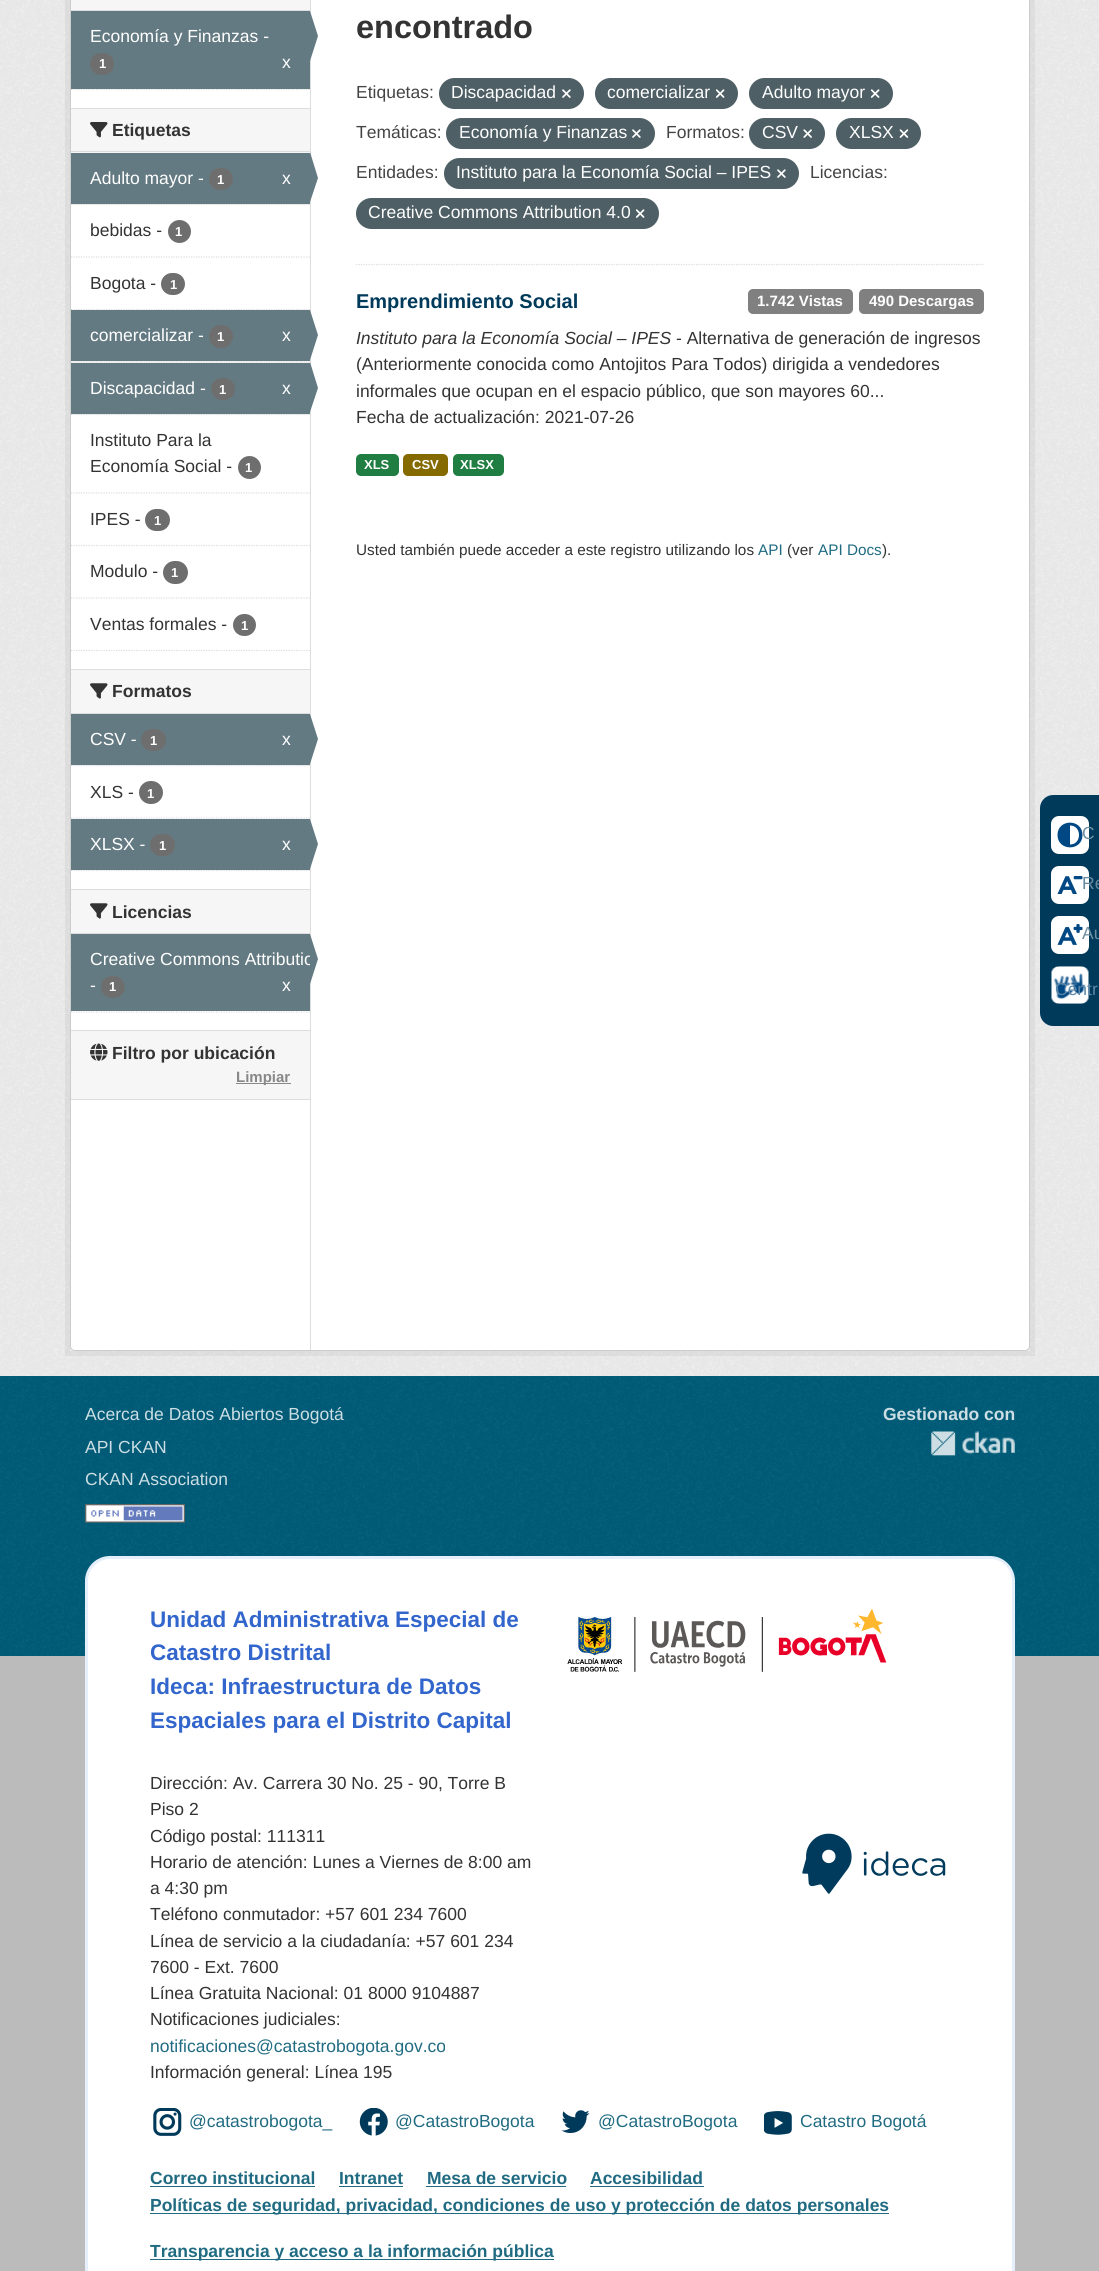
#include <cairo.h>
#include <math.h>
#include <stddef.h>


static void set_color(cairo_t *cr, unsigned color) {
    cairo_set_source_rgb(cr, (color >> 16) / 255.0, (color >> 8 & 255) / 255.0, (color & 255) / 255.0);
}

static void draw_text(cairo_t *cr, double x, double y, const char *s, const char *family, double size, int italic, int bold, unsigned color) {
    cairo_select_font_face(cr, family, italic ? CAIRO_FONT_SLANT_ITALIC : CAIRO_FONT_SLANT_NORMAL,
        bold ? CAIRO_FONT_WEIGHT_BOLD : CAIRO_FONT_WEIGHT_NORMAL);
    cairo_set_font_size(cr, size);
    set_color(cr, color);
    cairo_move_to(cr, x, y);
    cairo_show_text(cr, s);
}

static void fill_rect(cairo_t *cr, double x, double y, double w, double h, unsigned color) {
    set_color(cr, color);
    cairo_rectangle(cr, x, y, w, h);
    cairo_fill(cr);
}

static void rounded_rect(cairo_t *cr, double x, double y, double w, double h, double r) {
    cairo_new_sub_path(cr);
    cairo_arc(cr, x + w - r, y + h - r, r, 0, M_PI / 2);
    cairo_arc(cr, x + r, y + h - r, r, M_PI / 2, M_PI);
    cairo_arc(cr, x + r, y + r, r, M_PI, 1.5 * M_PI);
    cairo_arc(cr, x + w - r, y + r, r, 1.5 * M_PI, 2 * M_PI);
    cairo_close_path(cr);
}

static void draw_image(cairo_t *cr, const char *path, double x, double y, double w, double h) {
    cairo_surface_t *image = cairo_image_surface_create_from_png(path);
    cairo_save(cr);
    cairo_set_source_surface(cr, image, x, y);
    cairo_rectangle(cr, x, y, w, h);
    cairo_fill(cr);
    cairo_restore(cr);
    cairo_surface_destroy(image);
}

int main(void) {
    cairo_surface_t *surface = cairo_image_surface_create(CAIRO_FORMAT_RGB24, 1099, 2271);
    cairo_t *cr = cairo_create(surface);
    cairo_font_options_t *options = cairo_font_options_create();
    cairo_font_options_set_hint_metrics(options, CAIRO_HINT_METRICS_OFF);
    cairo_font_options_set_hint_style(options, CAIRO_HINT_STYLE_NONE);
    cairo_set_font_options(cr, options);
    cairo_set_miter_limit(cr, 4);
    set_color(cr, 0x005D7A);
    cairo_paint(cr);
    fill_rect(cr, 0, 0, 1099, 1376, 0xEEEEEE);
    draw_image(cr, "assets/img1.png", 0, 0, 1099, 1376);
    cairo_rectangle(cr, 67.5, -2.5, 965, 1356);
    cairo_set_source_rgba(cr, 0, 0, 0, 0.05);
    cairo_set_line_width(cr, 5);
    cairo_stroke(cr);
    set_color(cr, 0xFFFFFF);
    rounded_rect(cr, 70.5, -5.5, 959, 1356, 4.5);
    cairo_fill_preserve(cr);
    set_color(cr, 0xCCCCCC);
    cairo_set_line_width(cr, 1);
    cairo_stroke(cr);
    fill_rect(cr, 310, 0, 1, 1350, 0xDDDDDD);
    cairo_new_path(cr);
    cairo_move_to(cr, 356, 264.5);
    cairo_line_to(cr, 984, 264.5);
    cairo_set_line_width(cr, 1.2);
    cairo_set_dash(cr, (double[]){1.25, 1.25}, 2, 0);
    cairo_stroke(cr);
    draw_text(cr, 356, 38, "encontrado", "Liberation Sans", 32.5, 0, 1, 0x333333);
    draw_text(cr, 356, 98, "Etiquetas:", "Liberation Sans", 17.5, 0, 0, 0x444444);
    set_color(cr, 0x4E5F65);
    rounded_rect(cr, 439, 78, 145, 31, 15.5);
    cairo_fill(cr);
    draw_text(cr, 451, 98, "Discapacidad", "Liberation Sans", 17.5, 0, 0, 0xFFFFFF);
    draw_image(cr, "assets/img2.png", 562, 89, 9, 9);
    set_color(cr, 0x4E5F65);
    rounded_rect(cr, 595, 78, 143, 31, 15.5);
    cairo_fill(cr);
    draw_text(cr, 607, 98, "comercializar", "Liberation Sans", 17.5, 0, 0, 0xFFFFFF);
    draw_image(cr, "assets/img3.png", 715, 89, 10, 9);
    set_color(cr, 0x4E5F65);
    rounded_rect(cr, 749, 78, 144, 31, 15.5);
    cairo_fill(cr);
    draw_text(cr, 762, 98, "Adulto mayor", "Liberation Sans", 17.5, 0, 0, 0xFFFFFF);
    draw_image(cr, "assets/img3.png", 870, 89, 10, 9);
    draw_text(cr, 356, 138, "Temáticas:", "Liberation Sans", 17.5, 0, 0, 0x444444);
    set_color(cr, 0x4E5F65);
    rounded_rect(cr, 446, 118, 209, 31, 15.5);
    cairo_fill(cr);
    draw_text(cr, 459, 138, "Economía y Finanzas", "Liberation Sans", 17.5, 0, 0, 0xFFFFFF);
    draw_image(cr, "assets/img2.png", 632, 129, 9, 9);
    draw_text(cr, 666, 138, "Formatos:", "Liberation Sans", 17.5, 0, 0, 0x444444);
    set_color(cr, 0x4E5F65);
    rounded_rect(cr, 749, 118, 76, 31, 15.5);
    cairo_fill(cr);
    draw_text(cr, 762, 138, "CSV", "Liberation Sans", 17.5, 0, 0, 0xFFFFFF);
    draw_image(cr, "assets/img4.png", 803, 129, 9, 9);
    set_color(cr, 0x4E5F65);
    rounded_rect(cr, 836, 118, 85, 31, 15.5);
    cairo_fill(cr);
    draw_text(cr, 849, 138, "XLSX", "Liberation Sans", 17.5, 0, 0, 0xFFFFFF);
    draw_image(cr, "assets/img5.png", 899, 129, 10, 9);
    draw_text(cr, 356, 178, "Entidades:", "Liberation Sans", 17.5, 0, 0, 0x444444);
    set_color(cr, 0x4E5F65);
    rounded_rect(cr, 444, 158, 355, 31, 15.5);
    cairo_fill(cr);
    draw_text(cr, 456, 178, "Instituto para la Economía Social – IPES", "Liberation Sans", 17.5, 0, 0, 0xFFFFFF);
    draw_image(cr, "assets/img2.png", 777, 169, 9, 9);
    draw_text(cr, 810, 178, "Licencias:", "Liberation Sans", 17.5, 0, 0, 0x444444);
    set_color(cr, 0x4E5F65);
    rounded_rect(cr, 356, 198, 303, 31, 15.5);
    cairo_fill(cr);
    draw_text(cr, 368, 218, "Creative Commons Attribution 4.0", "Liberation Sans", 17.5, 0, 0, 0xFFFFFF);
    draw_image(cr, "assets/img3.png", 635, 209, 10, 9);
    draw_text(cr, 356, 308, "Emprendimiento Social", "Liberation Sans", 20, 0, 1, 0x003A5B);
    set_color(cr, 0x808080);
    rounded_rect(cr, 748, 289, 105, 25, 5);
    cairo_fill(cr);
    draw_text(cr, 757, 306, "1.742 Vistas", "Liberation Sans", 15, 0, 1, 0xFFFFFF);
    set_color(cr, 0x808080);
    rounded_rect(cr, 859, 289, 125, 25, 5);
    cairo_fill(cr);
    draw_text(cr, 869, 306, "490 Descargas", "Liberation Sans", 15, 0, 1, 0xFFFFFF);
    draw_text(cr, 356, 344, "Instituto para la Economía Social – IPES", "Liberation Sans", 17.5, 1, 0, 0x333333);
    draw_text(cr, 676, 344, "- Alternativa de generación de ingresos", "Liberation Sans", 17.5, 0, 0, 0x333333);
    draw_text(cr, 356, 370, "(Anteriormente conocida como Antojitos Para Todos) dirigida a vendedores", "Liberation Sans", 17.5, 0, 0, 0x333333);
    draw_text(cr, 356, 397, "informales que ocupan en el espacio público, que son mayores 60...", "Liberation Sans", 17.5, 0, 0, 0x333333);
    draw_text(cr, 356, 423, "Fecha de actualización: 2021-07-26", "Liberation Sans", 17.5, 0, 0, 0x333333);
    set_color(cr, 0x207E42);
    rounded_rect(cr, 356, 454, 43, 22, 5);
    cairo_fill(cr);
    draw_text(cr, 364, 469, "XLS", "Liberation Sans", 13, 0, 1, 0xFFFFFF);
    set_color(cr, 0x856A00);
    rounded_rect(cr, 403, 454, 45, 22, 5);
    cairo_fill(cr);
    draw_text(cr, 412, 469, "CSV", "Liberation Sans", 13, 0, 1, 0xFFFFFF);
    set_color(cr, 0x207E42);
    rounded_rect(cr, 453, 454, 51, 22, 5);
    cairo_fill(cr);
    draw_text(cr, 460, 469, "XLSX", "Liberation Sans", 13, 0, 1, 0xFFFFFF);
    draw_text(cr, 356, 555, "Usted también puede acceder a este registro utilizando los", "Liberation Sans", 15.3, 0, 0, 0x333333);
    draw_text(cr, 758, 555, "API", "Liberation Sans", 15.3, 0, 0, 0x206B82);
    draw_text(cr, 787, 555, "(ver", "Liberation Sans", 15.3, 0, 0, 0x333333);
    draw_text(cr, 818, 555, "API Docs", "Liberation Sans", 15.3, 0, 0, 0x206B82);
    draw_text(cr, 882, 555, ").", "Liberation Sans", 15.3, 0, 0, 0x333333);
    fill_rect(cr, 71, 0, 239, 10, 0xF6F6F6);
    fill_rect(cr, 71, 10, 239, 1, 0xDDDDDD);
    cairo_new_path(cr);
    cairo_move_to(cr, 71, 89.5);
    cairo_line_to(cr, 310, 89.5);
    cairo_stroke(cr);
    fill_rect(cr, 71, 11, 239, 78, 0x647A82);
    draw_text(cr, 90, 42, "Economía y Finanzas -", "Liberation Sans", 17.5, 0, 0, 0xFFFFFF);
    set_color(cr, 0x647A82);
    cairo_new_path(cr);
    cairo_move_to(cr, 310, 61);
    cairo_line_to(cr, 310, 11);
    cairo_line_to(cr, 318, 36);
    cairo_close_path(cr);
    cairo_fill(cr);
    set_color(cr, 0x6E6E6E);
    rounded_rect(cr, 90, 53, 24, 22, 11);
    cairo_fill(cr);
    draw_text(cr, 99, 68, "1", "Liberation Sans", 13, 0, 1, 0xFFFFFF);
    draw_text(cr, 282, 68, "x", "Liberation Sans", 17.5, 0, 0, 0xFFFFFF);
    fill_rect(cr, 71, 109, 239, 44, 0xF6F6F6);
    fill_rect(cr, 71, 108, 239, 1, 0xDDDDDD);
    fill_rect(cr, 71, 151, 239, 1, 0xDDDDDD);
    draw_image(cr, "assets/img6.png", 90, 122, 18, 16);
    draw_text(cr, 112, 136, "Etiquetas", "Liberation Sans", 17.5, 0, 1, 0x333333);
    fill_rect(cr, 72, 204, 238, 1, 0xF6F6F6);
    cairo_new_path(cr);
    cairo_move_to(cr, 71, 204.5);
    cairo_line_to(cr, 310, 204.5);
    set_color(cr, 0xDDDDDD);
    cairo_stroke(cr);
    fill_rect(cr, 71, 153, 239, 51, 0x647A82);
    draw_text(cr, 90, 184, "Adulto mayor -", "Liberation Sans", 17.5, 0, 0, 0xFFFFFF);
    set_color(cr, 0x6E6E6E);
    rounded_rect(cr, 209, 168, 24, 22, 11);
    cairo_fill(cr);
    draw_text(cr, 217, 184, "1", "Liberation Sans", 13, 0, 1, 0xFFFFFF);
    draw_text(cr, 282, 184, "x", "Liberation Sans", 17.5, 0, 0, 0xFFFFFF);
    set_color(cr, 0x647A82);
    cairo_new_path(cr);
    cairo_move_to(cr, 310, 202);
    cairo_line_to(cr, 310, 152);
    cairo_line_to(cr, 318, 178);
    cairo_close_path(cr);
    cairo_fill(cr);
    cairo_new_path(cr);
    cairo_move_to(cr, 71, 257);
    cairo_line_to(cr, 310, 257);
    set_color(cr, 0xDDDDDD);
    cairo_stroke(cr);
    draw_text(cr, 90, 236, "bebidas -", "Liberation Sans", 17.5, 0, 0, 0x333333);
    set_color(cr, 0x6E6E6E);
    cairo_new_path(cr);
    cairo_arc(cr, 179.5, 231.5, 11.5, 0, 2 * M_PI);
    cairo_fill(cr);
    draw_text(cr, 175, 236, "1", "Liberation Sans", 13, 0, 1, 0xFFFFFF);
    cairo_new_path(cr);
    cairo_move_to(cr, 71, 309.5);
    cairo_line_to(cr, 310, 309.5);
    set_color(cr, 0xDDDDDD);
    cairo_stroke(cr);
    draw_text(cr, 90, 289, "Bogota -", "Liberation Sans", 17.5, 0, 0, 0x333333);
    set_color(cr, 0x6E6E6E);
    rounded_rect(cr, 161, 273, 24, 22, 11);
    cairo_fill(cr);
    draw_text(cr, 170, 289, "1", "Liberation Sans", 13, 0, 1, 0xFFFFFF);
    fill_rect(cr, 71, 361, 239, 2, 0xF6F6F6);
    cairo_new_path(cr);
    cairo_move_to(cr, 71, 362);
    cairo_line_to(cr, 310, 362);
    set_color(cr, 0xDDDDDD);
    cairo_stroke(cr);
    fill_rect(cr, 71, 310, 239, 51, 0x647A82);
    draw_text(cr, 90, 341, "comercializar -", "Liberation Sans", 17.5, 0, 0, 0xFFFFFF);
    set_color(cr, 0x6E6E6E);
    rounded_rect(cr, 209, 325, 24, 23, 11.5);
    cairo_fill(cr);
    draw_text(cr, 217, 341, "1", "Liberation Sans", 13, 0, 1, 0xFFFFFF);
    draw_text(cr, 282, 341, "x", "Liberation Sans", 17.5, 0, 0, 0xFFFFFF);
    set_color(cr, 0x647A82);
    cairo_new_path(cr);
    cairo_move_to(cr, 310, 360);
    cairo_line_to(cr, 310, 310);
    cairo_line_to(cr, 318, 335);
    cairo_close_path(cr);
    cairo_fill(cr);
    fill_rect(cr, 72, 414, 238, 1, 0xF6F6F6);
    cairo_new_path(cr);
    cairo_move_to(cr, 71, 414.5);
    cairo_line_to(cr, 310, 414.5);
    set_color(cr, 0xDDDDDD);
    cairo_stroke(cr);
    fill_rect(cr, 71, 363, 239, 51, 0x647A82);
    draw_text(cr, 90, 394, "Discapacidad -", "Liberation Sans", 17.5, 0, 0, 0xFFFFFF);
    set_color(cr, 0x6E6E6E);
    rounded_rect(cr, 211, 378, 24, 22, 11);
    cairo_fill(cr);
    draw_text(cr, 219, 394, "1", "Liberation Sans", 13, 0, 1, 0xFFFFFF);
    draw_text(cr, 282, 394, "x", "Liberation Sans", 17.5, 0, 0, 0xFFFFFF);
    set_color(cr, 0x647A82);
    cairo_new_path(cr);
    cairo_move_to(cr, 310, 412);
    cairo_line_to(cr, 310, 362);
    cairo_line_to(cr, 318, 388);
    cairo_close_path(cr);
    cairo_fill(cr);
    cairo_new_path(cr);
    cairo_move_to(cr, 71, 493);
    cairo_line_to(cr, 310, 493);
    set_color(cr, 0xDDDDDD);
    cairo_stroke(cr);
    draw_text(cr, 90, 446, "Instituto Para la", "Liberation Sans", 17.5, 0, 0, 0x333333);
    draw_text(cr, 90, 472, "Economía Social -", "Liberation Sans", 17.5, 0, 0, 0x333333);
    set_color(cr, 0x6E6E6E);
    cairo_new_path(cr);
    cairo_arc(cr, 249.5, 467.5, 11.5, 0, 2 * M_PI);
    cairo_fill(cr);
    draw_text(cr, 245, 472, "1", "Liberation Sans", 13, 0, 1, 0xFFFFFF);
    cairo_new_path(cr);
    cairo_move_to(cr, 71, 545.5);
    cairo_line_to(cr, 310, 545.5);
    set_color(cr, 0xDDDDDD);
    cairo_stroke(cr);
    draw_text(cr, 90, 525, "IPES -", "Liberation Sans", 17.5, 0, 0, 0x333333);
    set_color(cr, 0x6E6E6E);
    rounded_rect(cr, 145, 509, 25, 22, 11);
    cairo_fill(cr);
    draw_text(cr, 154, 525, "1", "Liberation Sans", 13, 0, 1, 0xFFFFFF);
    cairo_new_path(cr);
    cairo_move_to(cr, 71, 598);
    cairo_line_to(cr, 310, 598);
    set_color(cr, 0xDDDDDD);
    cairo_stroke(cr);
    draw_text(cr, 90, 577, "Modulo -", "Liberation Sans", 17.5, 0, 0, 0x333333);
    set_color(cr, 0x6E6E6E);
    rounded_rect(cr, 163, 561, 25, 23, 11.5);
    cairo_fill(cr);
    draw_text(cr, 171, 577, "1", "Liberation Sans", 13, 0, 1, 0xFFFFFF);
    draw_text(cr, 90, 630, "Ventas formales -", "Liberation Sans", 17.5, 0, 0, 0x333333);
    set_color(cr, 0x6E6E6E);
    rounded_rect(cr, 233, 614, 23, 22, 11);
    cairo_fill(cr);
    draw_text(cr, 241, 630, "1", "Liberation Sans", 13, 0, 1, 0xFFFFFF);
    cairo_new_path(cr);
    cairo_move_to(cr, 71, 650.5);
    cairo_line_to(cr, 310, 650.5);
    set_color(cr, 0xDDDDDD);
    cairo_stroke(cr);
    fill_rect(cr, 71, 670, 239, 43, 0xF6F6F6);
    fill_rect(cr, 71, 669, 239, 1, 0xDDDDDD);
    fill_rect(cr, 71, 713, 239, 1, 0xDDDDDD);
    draw_image(cr, "assets/img7.png", 90, 683, 18, 16);
    draw_text(cr, 112, 697, "Formatos", "Liberation Sans", 17.5, 0, 1, 0x333333);
    fill_rect(cr, 72, 765, 238, 1, 0xF6F6F6);
    cairo_new_path(cr);
    cairo_move_to(cr, 71, 765.5);
    cairo_line_to(cr, 310, 765.5);
    set_color(cr, 0xDDDDDD);
    cairo_stroke(cr);
    fill_rect(cr, 71, 714, 239, 51, 0x647A82);
    draw_text(cr, 90, 745, "CSV -", "Liberation Sans", 17.5, 0, 0, 0xFFFFFF);
    set_color(cr, 0x6E6E6E);
    rounded_rect(cr, 141, 729, 25, 22, 11);
    cairo_fill(cr);
    draw_text(cr, 150, 745, "1", "Liberation Sans", 13, 0, 1, 0xFFFFFF);
    draw_text(cr, 282, 745, "x", "Liberation Sans", 17.5, 0, 0, 0xFFFFFF);
    set_color(cr, 0x647A82);
    cairo_new_path(cr);
    cairo_move_to(cr, 310, 764);
    cairo_line_to(cr, 310, 714);
    cairo_line_to(cr, 318, 739);
    cairo_close_path(cr);
    cairo_fill(cr);
    cairo_new_path(cr);
    cairo_move_to(cr, 71, 818);
    cairo_line_to(cr, 310, 818);
    set_color(cr, 0xDDDDDD);
    cairo_stroke(cr);
    draw_text(cr, 90, 798, "XLS -", "Liberation Sans", 17.5, 0, 0, 0x333333);
    set_color(cr, 0x6E6E6E);
    rounded_rect(cr, 139, 781, 24, 23, 11.5);
    cairo_fill(cr);
    draw_text(cr, 147, 798, "1", "Liberation Sans", 13, 0, 1, 0xFFFFFF);
    cairo_new_path(cr);
    cairo_move_to(cr, 71, 870.5);
    cairo_line_to(cr, 310, 870.5);
    set_color(cr, 0xDDDDDD);
    cairo_stroke(cr);
    fill_rect(cr, 71, 819, 239, 51, 0x647A82);
    draw_text(cr, 90, 850, "XLSX -", "Liberation Sans", 17.5, 0, 0, 0xFFFFFF);
    set_color(cr, 0x6E6E6E);
    rounded_rect(cr, 150, 834, 25, 22, 11);
    cairo_fill(cr);
    draw_text(cr, 159, 850, "1", "Liberation Sans", 13, 0, 1, 0xFFFFFF);
    draw_text(cr, 282, 850, "x", "Liberation Sans", 17.5, 0, 0, 0xFFFFFF);
    set_color(cr, 0x647A82);
    cairo_new_path(cr);
    cairo_move_to(cr, 310, 869);
    cairo_line_to(cr, 310, 819);
    cairo_line_to(cr, 318, 844);
    cairo_close_path(cr);
    cairo_fill(cr);
    fill_rect(cr, 71, 890, 239, 43, 0xF6F6F6);
    fill_rect(cr, 71, 889, 239, 1, 0xDDDDDD);
    fill_rect(cr, 71, 933, 239, 1, 0xDDDDDD);
    draw_image(cr, "assets/img7.png", 90, 903, 18, 16);
    draw_text(cr, 112, 918, "Licencias", "Liberation Sans", 17.5, 0, 1, 0x333333);
    fill_rect(cr, 71, 934, 239, 77, 0x647A82);
    draw_text(cr, 90, 965, "Creative Commons Attributio", "Liberation Sans", 17.5, 0, 0, 0xFFFFFF);
    set_color(cr, 0x647A82);
    cairo_new_path(cr);
    cairo_move_to(cr, 310, 984);
    cairo_line_to(cr, 310, 934);
    cairo_line_to(cr, 318, 959);
    cairo_close_path(cr);
    cairo_fill(cr);
    draw_text(cr, 90, 991, "-", "Liberation Sans", 17.5, 0, 0, 0xFFFFFF);
    set_color(cr, 0x6E6E6E);
    rounded_rect(cr, 101, 976, 24, 22, 11);
    cairo_fill(cr);
    draw_text(cr, 109, 991, "1", "Liberation Sans", 13, 0, 1, 0xFFFFFF);
    draw_text(cr, 282, 991, "x", "Liberation Sans", 17.5, 0, 0, 0xFFFFFF);
    cairo_new_path(cr);
    cairo_move_to(cr, 71, 1012);
    cairo_line_to(cr, 310, 1012);
    set_color(cr, 0xDDDDDD);
    cairo_stroke(cr);
    fill_rect(cr, 71, 1031, 239, 68, 0xF6F6F6);
    fill_rect(cr, 71, 1030, 239, 1, 0xDDDDDD);
    fill_rect(cr, 71, 1099, 239, 1, 0xDDDDDD);
    draw_image(cr, "assets/img8.png", 90, 1043, 18, 18);
    draw_text(cr, 112, 1059, "Filtro por ubicación", "Liberation Sans", 17.5, 0, 1, 0x333333);
    fill_rect(cr, 236, 1083, 55, 1, 0x888888);
    draw_text(cr, 236, 1082, "Limpiar", "Liberation Sans", 15, 0, 1, 0x888888);
    set_color(cr, 0x003A5B);
    cairo_new_path(cr);
    cairo_move_to(cr, 1053, 795);
    cairo_line_to(cr, 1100, 795);
    cairo_line_to(cr, 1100, 1026);
    cairo_line_to(cr, 1053, 1026);
    cairo_curve_to(cr, 1046, 1026, 1040, 1020, 1040, 1013);
    cairo_line_to(cr, 1040, 808);
    cairo_curve_to(cr, 1040, 801, 1046, 795, 1053, 795);
    cairo_close_path(cr);
    cairo_fill(cr);
    set_color(cr, 0xFFFFFF);
    rounded_rect(cr, 1051, 816, 38, 38, 8);
    cairo_fill(cr);
    set_color(cr, 0x004884);
    cairo_new_path(cr);
    cairo_move_to(cr, 1057.5, 835);
    cairo_curve_to(cr, 1057.5, 851.5, 1082.5, 851.5, 1082.5, 835);
    cairo_curve_to(cr, 1082.5, 818.5, 1057.5, 818.5, 1057.5, 835);
    cairo_close_path(cr);
    cairo_move_to(cr, 1070, 844.5);
    cairo_line_to(cr, 1070, 825.5);
    cairo_curve_to(cr, 1082, 825.5, 1082, 844.5, 1070, 844.5);
    cairo_close_path(cr);
    cairo_fill(cr);
    draw_text(cr, 1082, 839, "C", "Liberation Sans", 17.5, 0, 0, 0x6E8FA2);
    draw_image(cr, "assets/img9.png", 1051, 866, 38, 38);
    draw_text(cr, 1082, 889, "Re", "Liberation Sans", 17.5, 0, 0, 0x66899D);
    draw_image(cr, "assets/img10.png", 1051, 916, 38, 38);
    draw_text(cr, 1082, 939, "Au", "Liberation Sans", 17.5, 0, 0, 0x6E8FA2);
    draw_image(cr, "assets/img11.png", 1051, 966, 38, 38);
    draw_text(cr, 1055, 995, "Centr", "Liberation Sans", 17.5, 0, 0, 0x5C86A7);
    draw_image(cr, "assets/img12.png", 0, 1377, 1099, 279);
    draw_text(cr, 85, 1420, "Acerca de Datos Abiertos Bogotá", "Liberation Sans", 17.5, 0, 0, 0xCCDEE3);
    draw_text(cr, 85, 1453, "API CKAN", "Liberation Sans", 17.5, 0, 0, 0xCCDEE3);
    draw_text(cr, 85, 1485, "CKAN Association", "Liberation Sans", 17.5, 0, 0, 0xCCDEE3);
    draw_image(cr, "assets/img13.png", 85, 1504, 100, 19);
    draw_text(cr, 883, 1420, "Gestionado con", "Liberation Sans", 17.5, 0, 1, 0xCCDEE3);
    draw_image(cr, "assets/img14.png", 931, 1431, 84, 25);
    fill_rect(cr, 0, 1656, 1099, 615, 0xBBBBBB);
    set_color(cr, 0xFFFFFF);
    rounded_rect(cr, 86.5, 1557.5, 927, 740, 23.5);
    cairo_fill_preserve(cr);
    set_color(cr, 0xE5EEFB);
    cairo_set_line_width(cr, 3);
    cairo_set_dash(cr, NULL, 0, 0);
    cairo_stroke(cr);
    draw_text(cr, 150, 1627, "Unidad Administrativa Especial de", "Liberation Sans", 22.5, 0, 1, 0x3366CC);
    draw_text(cr, 150, 1660, "Catastro Distrital", "Liberation Sans", 22.5, 0, 1, 0x3366CC);
    draw_text(cr, 150, 1694, "Ideca: Infraestructura de Datos", "Liberation Sans", 22.5, 0, 1, 0x3366CC);
    draw_text(cr, 150, 1728, "Espaciales para el Distrito Capital", "Liberation Sans", 22.5, 0, 1, 0x3366CC);
    draw_text(cr, 150, 1789, "Dirección: Av. Carrera 30 No. 25 - 90, Torre B", "Liberation Sans", 17.5, 0, 0, 0x333333);
    draw_text(cr, 150, 1815, "Piso 2", "Liberation Sans", 17.5, 0, 0, 0x333333);
    draw_text(cr, 150, 1842, "Código postal: 111311", "Liberation Sans", 17.5, 0, 0, 0x333333);
    draw_text(cr, 150, 1868, "Horario de atención: Lunes a Viernes de 8:00 am", "Liberation Sans", 17.5, 0, 0, 0x333333);
    draw_text(cr, 150, 1894, "a 4:30 pm", "Liberation Sans", 17.5, 0, 0, 0x333333);
    draw_text(cr, 150, 1920, "Teléfono conmutador: +57 601 234 7600", "Liberation Sans", 17.5, 0, 0, 0x333333);
    draw_text(cr, 150, 1947, "Línea de servicio a la ciudadanía: +57 601 234", "Liberation Sans", 17.5, 0, 0, 0x333333);
    draw_text(cr, 150, 1973, "7600 - Ext. 7600", "Liberation Sans", 17.5, 0, 0, 0x333333);
    draw_text(cr, 150, 1999, "Línea Gratuita Nacional: 01 8000 9104887", "Liberation Sans", 17.5, 0, 0, 0x333333);
    draw_text(cr, 150, 2025, "Notificaciones judiciales:", "Liberation Sans", 17.5, 0, 0, 0x333333);
    draw_text(cr, 150, 2052, "notificaciones@catastrobogota.gov.co", "Liberation Sans", 17.5, 0, 0, 0x206B82);
    draw_text(cr, 150, 2078, "Información general: Línea 195", "Liberation Sans", 17.5, 0, 0, 0x333333);
    draw_image(cr, "assets/img15.png", 567, 1608, 320, 64);
    draw_image(cr, "assets/img16.png", 802, 1833, 144, 61);
    draw_image(cr, "assets/img17.png", 153, 2108, 29, 28);
    draw_text(cr, 189, 2127, "@catastrobogota_", "Liberation Sans", 17.5, 0, 0, 0x206B82);
    draw_image(cr, "assets/img18.png", 359, 2108, 29, 28);
    draw_text(cr, 395, 2127, "@CatastroBogota", "Liberation Sans", 17.5, 0, 0, 0x206B82);
    draw_image(cr, "assets/img19.png", 561, 2110, 29, 23);
    draw_text(cr, 598, 2127, "@CatastroBogota", "Liberation Sans", 17.5, 0, 0, 0x206B82);
    draw_image(cr, "assets/img20.png", 764, 2111, 28, 24);
    draw_text(cr, 800, 2127, "Catastro Bogotá", "Liberation Sans", 17.5, 0, 0, 0x206B82);
    draw_text(cr, 150, 2184, "Correo institucional", "Liberation Sans", 17.5, 0, 1, 0x206B82);
    fill_rect(cr, 150, 2186, 165, 1, 0x206B82);
    draw_text(cr, 339, 2184, "Intranet", "Liberation Sans", 17.5, 0, 1, 0x206B82);
    fill_rect(cr, 339, 2186, 64, 1, 0x206B82);
    draw_text(cr, 427, 2184, "Mesa de servicio", "Liberation Sans", 17.5, 0, 1, 0x206B82);
    fill_rect(cr, 426, 2186, 140, 1, 0x206B82);
    draw_text(cr, 590, 2184, "Accesibilidad", "Liberation Sans", 17.5, 0, 1, 0x206B82);
    fill_rect(cr, 590, 2186, 114, 1, 0x206B82);
    fill_rect(cr, 150, 2213, 739, 1, 0x206B82);
    draw_text(cr, 150, 2211, "Políticas de seguridad, privacidad, condiciones de uso y protección de datos personales", "Liberation Sans", 17.5, 0, 1, 0x206B82);
    fill_rect(cr, 150, 2259, 404, 1, 0x206B82);
    draw_text(cr, 150, 2257, "Transparencia y acceso a la información pública", "Liberation Sans", 17.5, 0, 1, 0x206B82);
    cairo_surface_write_to_png(surface, "output.png");
    cairo_font_options_destroy(options);
    cairo_destroy(cr);
    cairo_surface_destroy(surface);
    return 0;
}
